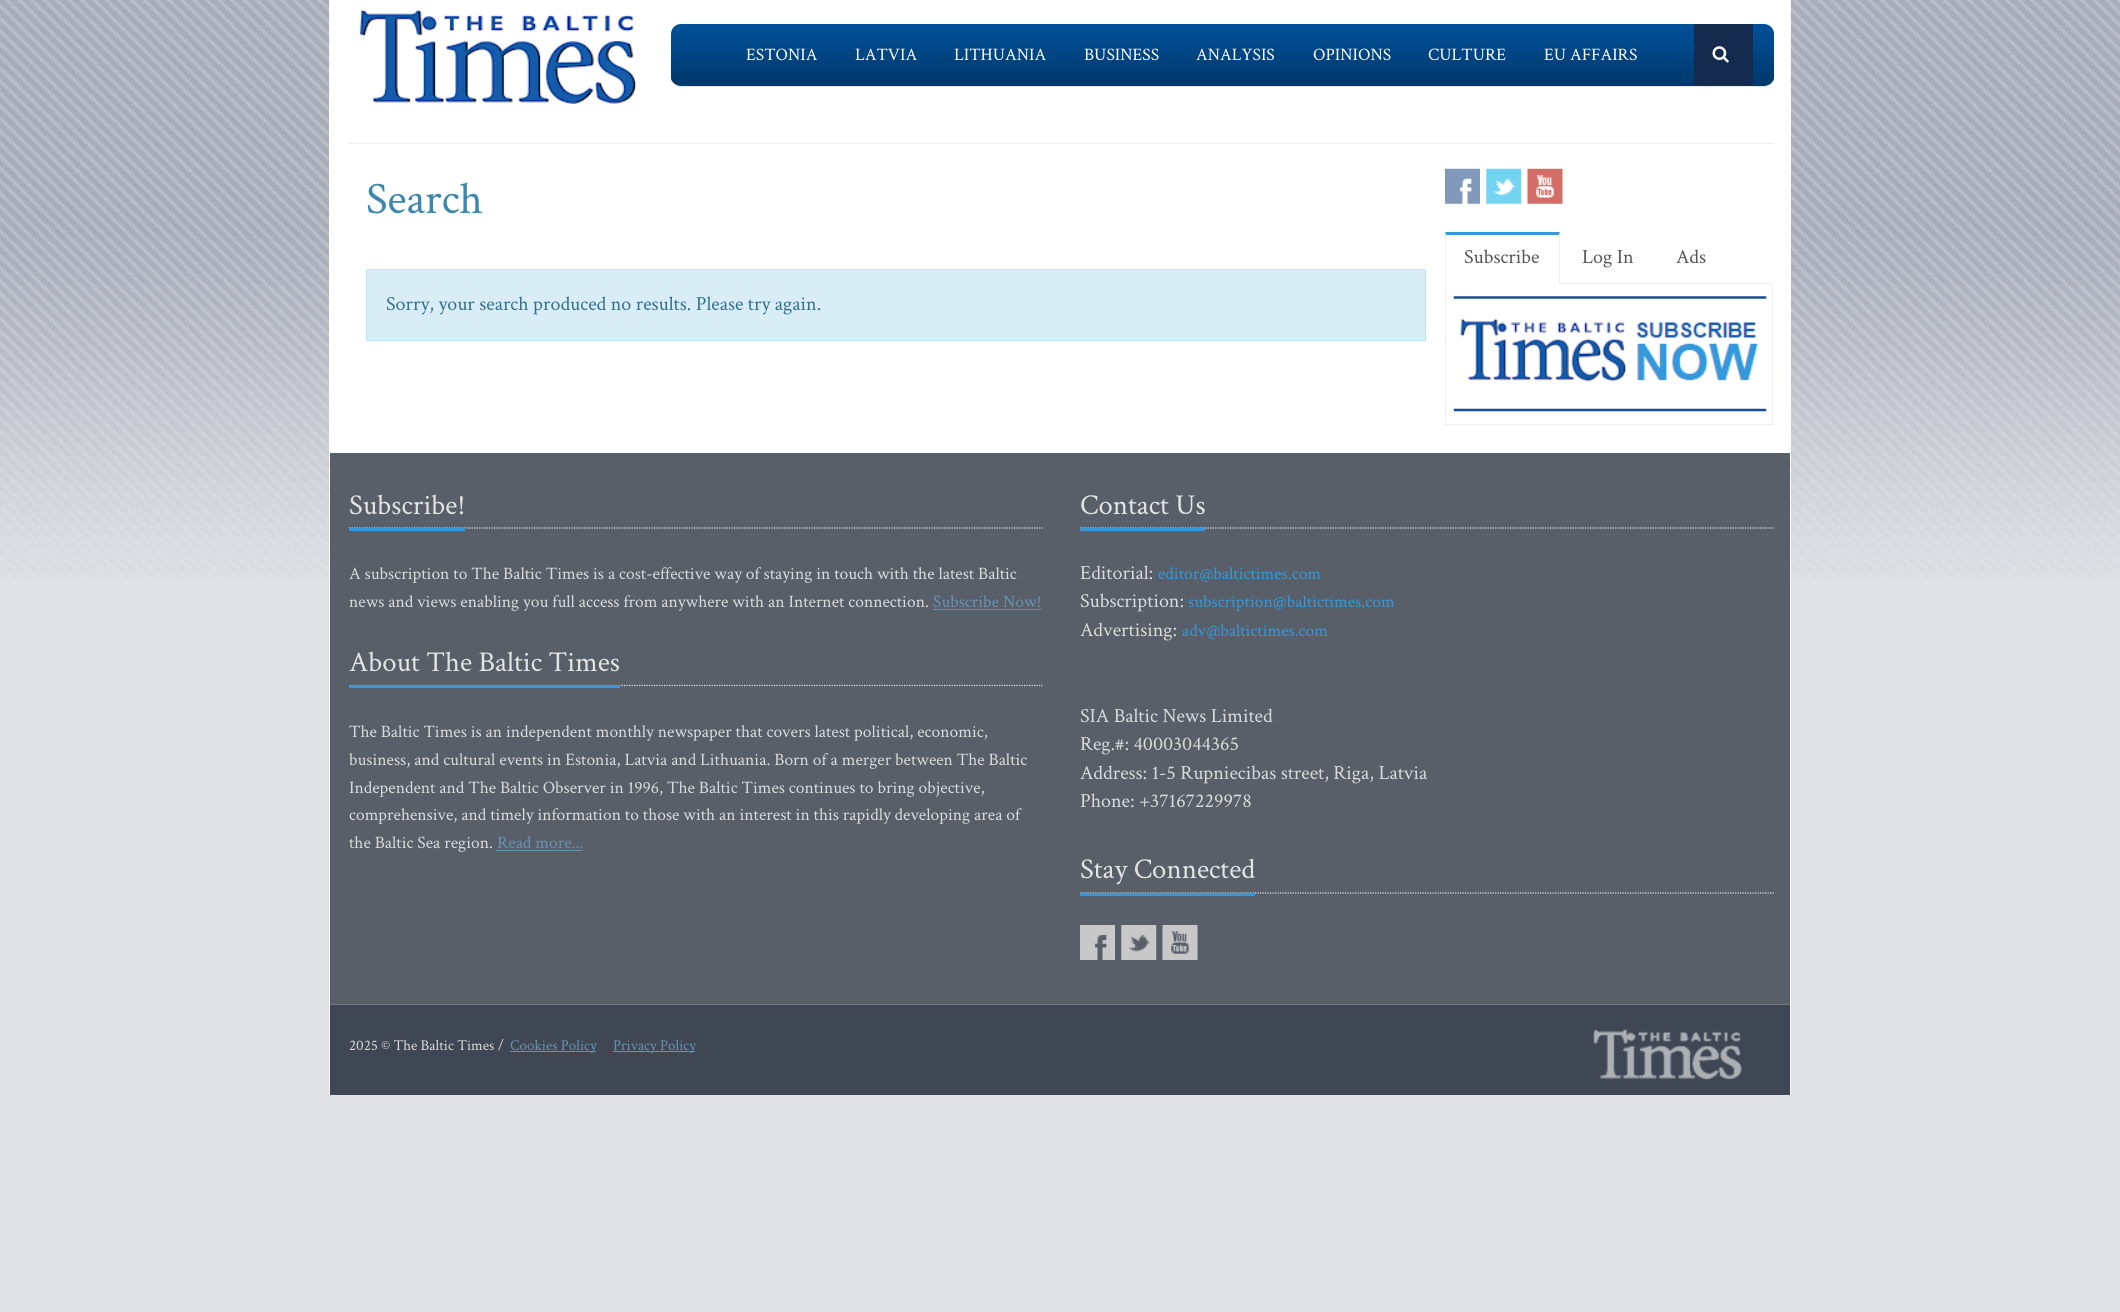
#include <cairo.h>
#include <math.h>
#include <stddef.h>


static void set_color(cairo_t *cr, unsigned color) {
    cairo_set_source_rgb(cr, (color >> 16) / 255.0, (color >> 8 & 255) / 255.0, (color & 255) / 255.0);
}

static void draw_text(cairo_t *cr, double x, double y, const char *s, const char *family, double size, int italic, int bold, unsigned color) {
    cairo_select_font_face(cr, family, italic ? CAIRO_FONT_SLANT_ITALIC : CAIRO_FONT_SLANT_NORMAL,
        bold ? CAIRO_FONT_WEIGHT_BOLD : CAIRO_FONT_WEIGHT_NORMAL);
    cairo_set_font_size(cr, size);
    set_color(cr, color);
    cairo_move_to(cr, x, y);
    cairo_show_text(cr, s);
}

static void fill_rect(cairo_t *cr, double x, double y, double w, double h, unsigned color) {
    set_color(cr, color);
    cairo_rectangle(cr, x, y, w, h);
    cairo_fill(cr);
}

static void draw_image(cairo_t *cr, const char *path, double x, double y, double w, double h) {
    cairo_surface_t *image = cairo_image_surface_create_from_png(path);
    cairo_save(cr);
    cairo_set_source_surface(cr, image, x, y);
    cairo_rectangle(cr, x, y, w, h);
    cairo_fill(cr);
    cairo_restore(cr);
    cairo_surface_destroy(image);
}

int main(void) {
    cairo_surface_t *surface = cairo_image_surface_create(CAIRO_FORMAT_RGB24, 2120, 1312);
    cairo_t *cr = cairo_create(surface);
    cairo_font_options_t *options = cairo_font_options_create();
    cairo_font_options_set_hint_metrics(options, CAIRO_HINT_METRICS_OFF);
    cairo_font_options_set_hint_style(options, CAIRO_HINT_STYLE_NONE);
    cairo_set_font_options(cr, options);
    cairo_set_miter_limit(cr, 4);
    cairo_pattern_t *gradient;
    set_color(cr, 0xE1E2E6);
    cairo_paint(cr);
    draw_image(cr, "assets/img1.png", 0, 0, 2120, 581);
    fill_rect(cr, 1790, 0, 1, 1095, 0xF7F7F7);
    fill_rect(cr, 329, 0, 1, 1095, 0xF7F7F7);
    fill_rect(cr, 330, 0, 1460, 99, 0xFFFFFF);
    fill_rect(cr, 329, 99, 1462, 360, 0xFFFFFF);
    draw_image(cr, "assets/img2.png", 359, 9, 278, 95);
    gradient = cairo_pattern_create_linear(1223, 24, 1223, 86);
    cairo_pattern_add_color_stop_rgba(gradient, 0, 0, 0.314, 0.604, 1);
    cairo_pattern_add_color_stop_rgba(gradient, 1, 0, 0.22, 0.416, 1);
    cairo_set_source(cr, gradient);
    cairo_pattern_destroy(gradient);
    cairo_new_path(cr);
    cairo_move_to(cr, 681, 24);
    cairo_line_to(cr, 1764, 24);
    cairo_curve_to(cr, 1769, 24, 1774, 28, 1774, 34);
    cairo_line_to(cr, 1774, 78);
    cairo_curve_to(cr, 1774, 82, 1769, 86, 1764, 86);
    cairo_line_to(cr, 681, 86);
    cairo_curve_to(cr, 676, 86, 671, 82, 671, 78);
    cairo_line_to(cr, 671, 34);
    cairo_curve_to(cr, 671, 28, 676, 24, 681, 24);
    cairo_close_path(cr);
    cairo_fill(cr);
    fill_rect(cr, 676, 86, 1093, 1, 0xE7E7E7);
    draw_text(cr, 746, 60, "ESTONIA", "Crimson Text", 17.5, 0, 0, 0xFFFFFF);
    draw_text(cr, 855, 60, "LATVIA", "Crimson Text", 17.5, 0, 0, 0xFFFFFF);
    draw_text(cr, 954, 60, "LITHUANIA", "Crimson Text", 17.5, 0, 0, 0xFFFFFF);
    draw_text(cr, 1084, 60, "BUSINESS", "Crimson Text", 17.5, 0, 0, 0xFFFFFF);
    draw_text(cr, 1196, 60, "ANALYSIS", "Crimson Text", 17.5, 0, 0, 0xFFFFFF);
    draw_text(cr, 1313, 60, "OPINIONS", "Crimson Text", 17.5, 0, 0, 0xFFFFFF);
    draw_text(cr, 1428, 60, "CULTURE", "Crimson Text", 17.5, 0, 0, 0xFFFFFF);
    draw_text(cr, 1544, 60, "EU AFFAIRS", "Crimson Text", 17.5, 0, 0, 0xFFFFFF);
    fill_rect(cr, 1694, 24, 59, 62, 0x152B4E);
    draw_image(cr, "assets/img3.png", 1712, 46, 17, 17);
    fill_rect(cr, 348, 143, 1425, 1, 0xEEEEEE);
    draw_text(cr, 366, 213, "Search", "Crimson Text", 45, 0, 0, 0x3B87AD);
    set_color(cr, 0xD9EDF7);
    cairo_rectangle(cr, 366.5, 269.5, 1059, 71);
    cairo_fill_preserve(cr);
    set_color(cr, 0xBCE8F1);
    cairo_set_line_width(cr, 1);
    cairo_stroke(cr);
    draw_text(cr, 386, 310, "Sorry, your search produced no results. Please try again.", "Crimson Text", 20, 0, 0, 0x31708F);
    draw_image(cr, "assets/img4.png", 1445, 168, 35, 36);
    draw_image(cr, "assets/img5.png", 1486, 168, 36, 36);
    draw_image(cr, "assets/img6.png", 1527, 168, 36, 36);
    cairo_rectangle(cr, 1445.5, 283.5, 327, 141);
    set_color(cr, 0xEEEEEE);
    cairo_stroke(cr);
    fill_rect(cr, 1445, 283, 115, 1, 0xFFFFFF);
    set_color(cr, 0x3498DB);
    cairo_new_path(cr);
    cairo_move_to(cr, 1445, 232);
    cairo_line_to(cr, 1560, 232);
    cairo_line_to(cr, 1559, 235);
    cairo_line_to(cr, 1446, 235);
    cairo_close_path(cr);
    cairo_fill(cr);
    set_color(cr, 0xEEEEEE);
    cairo_new_path(cr);
    cairo_move_to(cr, 1560, 232);
    cairo_line_to(cr, 1560, 284);
    cairo_line_to(cr, 1559, 284);
    cairo_line_to(cr, 1559, 235);
    cairo_close_path(cr);
    cairo_fill(cr);
    cairo_new_path(cr);
    cairo_move_to(cr, 1445, 284);
    cairo_line_to(cr, 1445, 232);
    cairo_line_to(cr, 1446, 235);
    cairo_line_to(cr, 1446, 284);
    cairo_close_path(cr);
    cairo_fill(cr);
    draw_text(cr, 1464, 263, "Subscribe", "Crimson Text", 20, 0, 0, 0x555555);
    draw_text(cr, 1582, 263, "Log In", "Crimson Text", 20, 0, 0, 0x555555);
    draw_text(cr, 1676, 263, "Ads", "Crimson Text", 20, 0, 0, 0x555555);
    draw_image(cr, "assets/img7.png", 1453, 296, 314, 116);
    fill_rect(cr, 330, 453, 1460, 551, 0x585F69);
    cairo_new_path(cr);
    cairo_move_to(cr, 349, 528);
    cairo_line_to(cr, 1042.5, 528);
    set_color(cr, 0xE4E9F0);
    cairo_set_line_width(cr, 1.2);
    cairo_set_dash(cr, (double[]){1.25, 1.25}, 2, 0);
    cairo_stroke(cr);
    fill_rect(cr, 349, 528, 116, 3, 0x3498DB);
    draw_text(cr, 349, 514, "Subscribe!", "Crimson Text", 28.75, 0, 0, 0xE4E4E4);
    draw_text(cr, 349, 579, "A subscription to The Baltic Times is a cost-effective way of staying in touch with the latest Baltic", "Crimson Text", 17.5, 0, 0, 0xDADADA);
    draw_text(cr, 349, 607, "news and views enabling you full access from anywhere with an Internet connection.", "Crimson Text", 17.5, 0, 0, 0xDADADA);
    draw_text(cr, 933, 607, "Subscribe Now!", "Crimson Text", 17.5, 0, 0, 0x6692B0);
    fill_rect(cr, 933, 609, 108, 1, 0x6692B0);
    cairo_new_path(cr);
    cairo_move_to(cr, 349, 685.5);
    cairo_line_to(cr, 1042.5, 685.5);
    set_color(cr, 0xE4E9F0);
    cairo_stroke(cr);
    fill_rect(cr, 349, 685, 271, 3, 0x3498DB);
    draw_text(cr, 349, 671, "About The Baltic Times", "Crimson Text", 28.75, 0, 0, 0xE4E4E4);
    draw_text(cr, 349, 737, "The Baltic Times is an independent monthly newspaper that covers latest political, economic,", "Crimson Text", 17.5, 0, 0, 0xDADADA);
    draw_text(cr, 349, 765, "business, and cultural events in Estonia, Latvia and Lithuania. Born of a merger between The Baltic", "Crimson Text", 17.5, 0, 0, 0xDADADA);
    draw_text(cr, 349, 793, "Independent and The Baltic Observer in 1996, The Baltic Times continues to bring objective,", "Crimson Text", 17.5, 0, 0, 0xDADADA);
    draw_text(cr, 349, 820, "comprehensive, and timely information to those with an interest in this rapidly developing area of", "Crimson Text", 17.5, 0, 0, 0xDADADA);
    draw_text(cr, 349, 848, "the Baltic Sea region.", "Crimson Text", 17.5, 0, 0, 0xDADADA);
    draw_text(cr, 497, 848, "Read more...", "Crimson Text", 17.5, 0, 0, 0x6692B0);
    fill_rect(cr, 496, 850, 87, 1, 0x6692B0);
    cairo_new_path(cr);
    cairo_move_to(cr, 1080, 528);
    cairo_line_to(cr, 1774, 528);
    set_color(cr, 0xE4E9F0);
    cairo_stroke(cr);
    fill_rect(cr, 1080, 528, 125, 3, 0x3498DB);
    draw_text(cr, 1080, 514, "Contact Us", "Crimson Text", 28.75, 0, 0, 0xE4E4E4);
    draw_text(cr, 1080, 579, "Editorial:", "Crimson Text", 20, 0, 0, 0xDADADA);
    draw_text(cr, 1158, 579, "editor@baltictimes.com", "Crimson Text", 17.5, 0, 0, 0x3498DB);
    draw_text(cr, 1080, 607, "Subscription:", "Crimson Text", 20, 0, 0, 0xDADADA);
    draw_text(cr, 1188, 607, "subscription@baltictimes.com", "Crimson Text", 17.5, 0, 0, 0x3498DB);
    draw_text(cr, 1080, 636, "Advertising:", "Crimson Text", 20, 0, 0, 0xDADADA);
    draw_text(cr, 1182, 636, "adv@baltictimes.com", "Crimson Text", 17.5, 0, 0, 0x3498DB);
    draw_text(cr, 1080, 722, "SIA Baltic News Limited", "Crimson Text", 20, 0, 0, 0xDADADA);
    draw_text(cr, 1080, 750, "Reg.#: 40003044365", "Crimson Text", 20, 0, 0, 0xDADADA);
    draw_text(cr, 1080, 779, "Address: 1-5 Rupniecibas street, Riga, Latvia", "Crimson Text", 20, 0, 0, 0xDADADA);
    draw_text(cr, 1080, 807, "Phone: +37167229978", "Crimson Text", 20, 0, 0, 0xDADADA);
    cairo_new_path(cr);
    cairo_move_to(cr, 1080, 893);
    cairo_line_to(cr, 1774, 893);
    set_color(cr, 0xE4E9F0);
    cairo_stroke(cr);
    fill_rect(cr, 1080, 893, 175, 3, 0x3498DB);
    draw_text(cr, 1080, 878, "Stay Connected", "Crimson Text", 28.75, 0, 0, 0xE4E4E4);
    draw_image(cr, "assets/img8.png", 1080, 925, 35, 35);
    draw_image(cr, "assets/img9.png", 1121, 925, 36, 35);
    draw_image(cr, "assets/img10.png", 1162, 925, 36, 35);
    fill_rect(cr, 330, 1005, 1460, 90, 0x3E4753);
    fill_rect(cr, 330, 1004, 1460, 1, 0x777777);
    draw_text(cr, 349, 1050, "2025 © The Baltic Times /", "Crimson Text", 15, 0, 0, 0xDADADA);
    fill_rect(cr, 510, 1051, 86, 1, 0x6692B0);
    draw_text(cr, 510, 1050, "Cookies Policy", "Crimson Text", 15, 0, 0, 0x6692B0);
    fill_rect(cr, 613, 1051, 82, 1, 0x6692B0);
    draw_text(cr, 613, 1050, "Privacy Policy", "Crimson Text", 15, 0, 0, 0x6692B0);
    draw_image(cr, "assets/img11.png", 1593, 1029, 149, 52);
    cairo_surface_write_to_png(surface, "output.png");
    cairo_font_options_destroy(options);
    cairo_destroy(cr);
    cairo_surface_destroy(surface);
    return 0;
}
